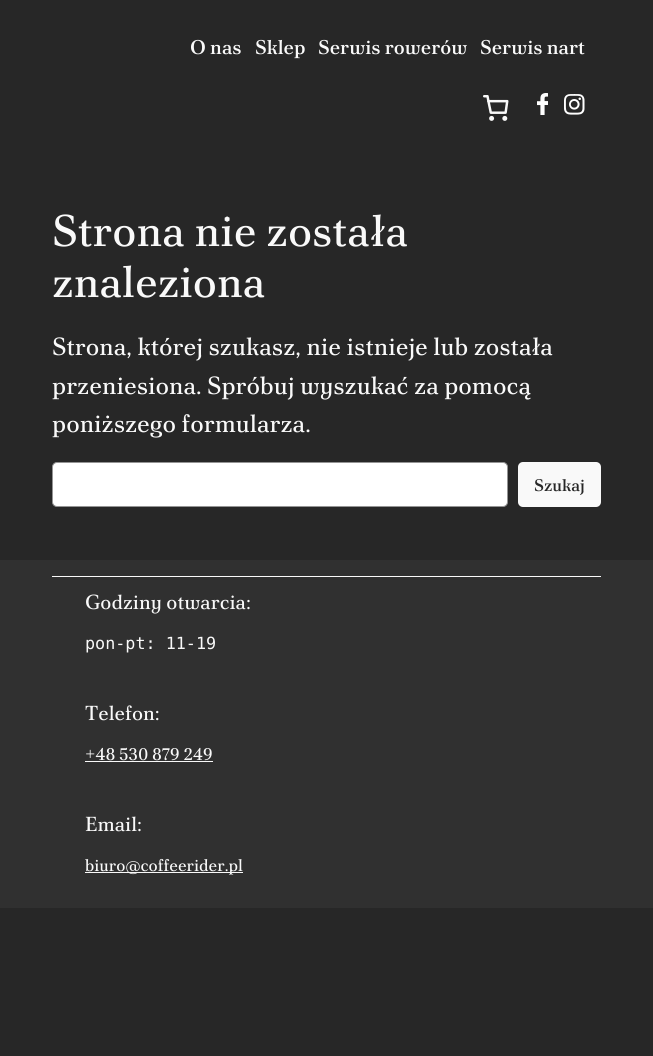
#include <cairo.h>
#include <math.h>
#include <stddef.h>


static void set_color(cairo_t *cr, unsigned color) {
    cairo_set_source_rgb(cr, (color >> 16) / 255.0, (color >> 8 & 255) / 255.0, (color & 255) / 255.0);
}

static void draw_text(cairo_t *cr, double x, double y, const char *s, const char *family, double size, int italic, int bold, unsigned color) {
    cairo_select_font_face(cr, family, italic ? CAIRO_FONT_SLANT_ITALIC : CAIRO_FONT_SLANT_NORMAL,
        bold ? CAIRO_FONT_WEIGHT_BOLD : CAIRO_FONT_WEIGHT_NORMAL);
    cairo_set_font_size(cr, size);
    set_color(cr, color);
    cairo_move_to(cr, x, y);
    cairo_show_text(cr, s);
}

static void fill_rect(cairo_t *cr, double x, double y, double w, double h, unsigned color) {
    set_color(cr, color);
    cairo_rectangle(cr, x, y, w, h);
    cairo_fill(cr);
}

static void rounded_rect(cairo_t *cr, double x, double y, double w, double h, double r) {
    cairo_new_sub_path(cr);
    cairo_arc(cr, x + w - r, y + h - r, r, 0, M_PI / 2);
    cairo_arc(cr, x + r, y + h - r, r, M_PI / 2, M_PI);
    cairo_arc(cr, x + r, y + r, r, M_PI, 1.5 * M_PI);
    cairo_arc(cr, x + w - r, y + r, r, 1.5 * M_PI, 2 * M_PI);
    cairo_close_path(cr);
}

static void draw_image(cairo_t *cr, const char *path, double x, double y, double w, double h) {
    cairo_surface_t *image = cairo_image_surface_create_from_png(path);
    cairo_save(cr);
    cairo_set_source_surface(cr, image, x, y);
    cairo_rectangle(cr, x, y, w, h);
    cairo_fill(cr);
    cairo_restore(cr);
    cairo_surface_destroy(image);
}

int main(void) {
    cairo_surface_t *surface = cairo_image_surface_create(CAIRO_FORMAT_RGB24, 653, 1056);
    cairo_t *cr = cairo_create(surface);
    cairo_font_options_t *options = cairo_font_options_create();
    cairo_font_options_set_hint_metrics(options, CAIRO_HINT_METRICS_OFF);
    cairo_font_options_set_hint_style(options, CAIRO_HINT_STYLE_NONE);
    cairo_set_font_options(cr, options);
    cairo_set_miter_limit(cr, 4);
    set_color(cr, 0x272727);
    cairo_paint(cr);
    draw_text(cr, 190, 54, "O nas", "Poltawski Nowy Medium", 19.75, 0, 0, 0xF9F9F9);
    draw_text(cr, 255, 54, "Sklep", "Poltawski Nowy Medium", 19.75, 0, 0, 0xF9F9F9);
    draw_text(cr, 318, 54, "Serwis rowerów", "Poltawski Nowy Medium", 19.75, 0, 0, 0xF9F9F9);
    draw_text(cr, 480, 54, "Serwis nart", "Poltawski Nowy Medium", 19.75, 0, 0, 0xF9F9F9);
    draw_image(cr, "assets/img1.png", 483, 95, 26, 26);
    draw_image(cr, "assets/img2.png", 537, 93, 11, 22);
    draw_image(cr, "assets/img3.png", 564, 94, 21, 21);
    draw_text(cr, 52, 246, "Strona nie została", "Poltawski Nowy", 44.25, 0, 0, 0xF9F9F9);
    draw_text(cr, 52, 297, "znaleziona", "Poltawski Nowy", 44.25, 0, 0, 0xF9F9F9);
    draw_text(cr, 52, 355, "Strona, której szukasz, nie istnieje lub została", "Poltawski Nowy", 24.75, 0, 0, 0xF9F9F9);
    draw_text(cr, 52, 394, "przeniesiona. Spróbuj wyszukać za pomocą", "Poltawski Nowy", 24.75, 0, 0, 0xF9F9F9);
    draw_text(cr, 52, 432, "poniższego formularza.", "Poltawski Nowy", 24.75, 0, 0, 0xF9F9F9);
    set_color(cr, 0xFFFFFF);
    rounded_rect(cr, 52.5, 462.5, 455, 44, 4.5);
    cairo_fill_preserve(cr);
    set_color(cr, 0x949494);
    cairo_set_line_width(cr, 1);
    cairo_stroke(cr);
    set_color(cr, 0xF9F9F9);
    rounded_rect(cr, 518, 462, 83, 45, 5);
    cairo_fill(cr);
    draw_text(cr, 534, 491, "Szukaj", "Poltawski Nowy Medium", 16.75, 0, 0, 0x272727);
    fill_rect(cr, 0, 560, 653, 348, 0x303030);
    fill_rect(cr, 52, 576, 549, 1, 0xF9F9F9);
    draw_text(cr, 85, 609, "Godziny otwarcia:", "Poltawski Nowy", 20.25, 0, 0, 0xF9F9F9);
    draw_text(cr, 85, 649, "pon-pt: 11-19", "DejaVu Sans Mono", 16.75, 0, 0, 0xF9F9F9);
    draw_text(cr, 85, 720, "Telefon:", "Poltawski Nowy", 20.25, 0, 0, 0xF9F9F9);
    draw_text(cr, 85, 760, "+48 530 879 249", "Poltawski Nowy", 16.75, 0, 0, 0xF9F9F9);
    fill_rect(cr, 85, 761, 128, 1, 0xF9F9F9);
    draw_text(cr, 85, 831, "Email:", "Poltawski Nowy", 20.25, 0, 0, 0xF9F9F9);
    fill_rect(cr, 85, 872, 158, 1, 0xF9F9F9);
    draw_text(cr, 85, 871, "biuro@coffeerider.pl", "Poltawski Nowy", 16.75, 0, 0, 0xF9F9F9);
    cairo_surface_write_to_png(surface, "output.png");
    cairo_font_options_destroy(options);
    cairo_destroy(cr);
    cairo_surface_destroy(surface);
    return 0;
}
